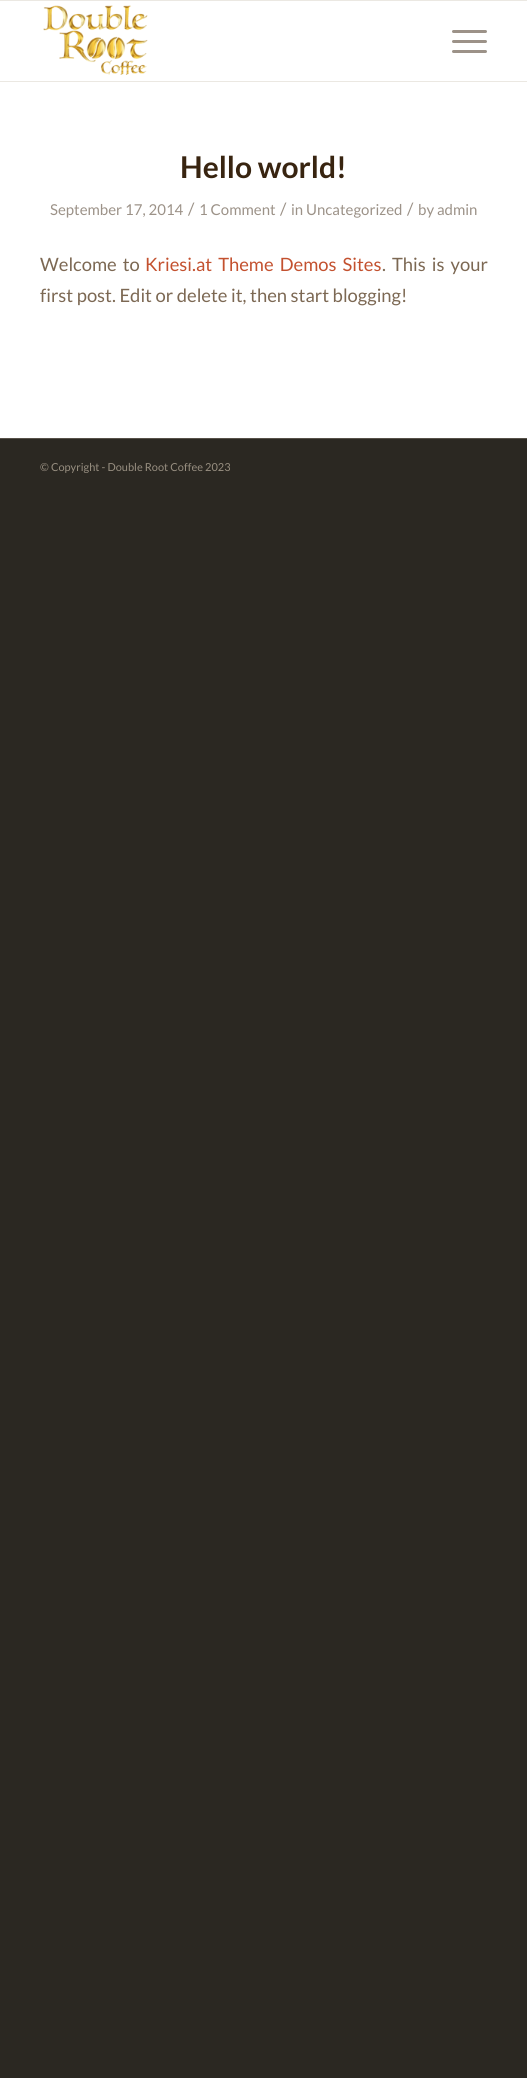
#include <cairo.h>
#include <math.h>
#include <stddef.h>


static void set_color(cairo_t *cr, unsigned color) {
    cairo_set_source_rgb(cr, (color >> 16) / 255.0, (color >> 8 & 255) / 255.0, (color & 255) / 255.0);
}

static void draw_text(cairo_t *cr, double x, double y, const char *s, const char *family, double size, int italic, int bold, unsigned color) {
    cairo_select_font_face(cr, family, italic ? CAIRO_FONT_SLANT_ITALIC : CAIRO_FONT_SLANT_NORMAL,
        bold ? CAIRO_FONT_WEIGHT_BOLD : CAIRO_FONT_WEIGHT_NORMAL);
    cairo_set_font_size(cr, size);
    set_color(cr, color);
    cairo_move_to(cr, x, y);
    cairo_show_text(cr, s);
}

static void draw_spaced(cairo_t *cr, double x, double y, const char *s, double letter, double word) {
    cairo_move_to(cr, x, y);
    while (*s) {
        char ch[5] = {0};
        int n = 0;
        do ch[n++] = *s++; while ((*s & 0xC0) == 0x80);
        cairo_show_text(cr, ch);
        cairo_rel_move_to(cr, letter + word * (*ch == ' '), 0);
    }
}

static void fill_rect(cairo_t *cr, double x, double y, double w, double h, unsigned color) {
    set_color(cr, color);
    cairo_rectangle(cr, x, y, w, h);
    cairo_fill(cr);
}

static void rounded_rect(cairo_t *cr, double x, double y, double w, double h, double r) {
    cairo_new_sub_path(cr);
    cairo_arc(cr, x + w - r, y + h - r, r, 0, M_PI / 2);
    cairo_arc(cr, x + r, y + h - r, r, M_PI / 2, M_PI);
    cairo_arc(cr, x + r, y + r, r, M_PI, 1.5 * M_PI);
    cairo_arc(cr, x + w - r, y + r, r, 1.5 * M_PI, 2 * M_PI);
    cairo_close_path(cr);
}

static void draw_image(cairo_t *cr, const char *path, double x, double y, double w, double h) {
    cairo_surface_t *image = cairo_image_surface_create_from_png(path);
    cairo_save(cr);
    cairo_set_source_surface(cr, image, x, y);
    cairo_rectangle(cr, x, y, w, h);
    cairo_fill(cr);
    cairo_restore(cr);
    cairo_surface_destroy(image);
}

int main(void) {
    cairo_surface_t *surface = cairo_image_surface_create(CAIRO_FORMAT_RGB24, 527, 2078);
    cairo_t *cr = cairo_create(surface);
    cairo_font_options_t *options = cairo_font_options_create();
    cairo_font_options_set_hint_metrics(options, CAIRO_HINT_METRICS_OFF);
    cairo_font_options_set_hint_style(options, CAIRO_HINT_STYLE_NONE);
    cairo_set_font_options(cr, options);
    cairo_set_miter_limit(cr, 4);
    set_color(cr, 0x2B2822);
    cairo_paint(cr);
    fill_rect(cr, 0, 1, 527, 437, 0xFFFFFF);
    fill_rect(cr, 0, 0, 527, 1, 0xEBE8E2);
    fill_rect(cr, 0, 81, 527, 1, 0xEBE8E2);
    draw_image(cr, "assets/img1.png", 43, 5, 105, 70);
    set_color(cr, 0x9C9288);
    rounded_rect(cr, 452, 40, 35, 3, 1.5);
    cairo_fill(cr);
    rounded_rect(cr, 452, 30, 35, 3, 1.5);
    cairo_fill(cr);
    rounded_rect(cr, 452, 50, 35, 3, 1.5);
    cairo_fill(cr);
    draw_text(cr, 180, 178, "Hello world!", "Lato", 30, 0, 1, 0x382410);
    draw_text(cr, 50, 215, "September 17, 2014", "Lato", 15, 0, 0, 0x9C9288);
    draw_text(cr, 188, 215, "/", "Lato", 17, 0, 0, 0x9C9288);
    draw_text(cr, 199, 215, "1 Comment", "Lato", 15, 0, 0, 0x9C9288);
    draw_text(cr, 280, 215, "/", "Lato", 17, 0, 0, 0x9C9288);
    draw_text(cr, 291, 215, "in Uncategorized", "Lato", 15, 0, 0, 0x9C9288);
    draw_text(cr, 407, 215, "/", "Lato", 17, 0, 0, 0x9C9288);
    draw_text(cr, 418, 215, "by admin", "Lato", 15, 0, 0, 0x9C9288);
    cairo_set_font_size(cr, 18.4);
    set_color(cr, 0x7C6853);
    draw_spaced(cr, 40, 271, "Welcome to", 0, 2.5);
    set_color(cr, 0xC3512F);
    draw_spaced(cr, 145, 271, "Kriesi.at Theme Demos Sites", 0, 2.5);
    set_color(cr, 0x7C6853);
    draw_spaced(cr, 382, 271, ". This is your", 0, 2.5);
    draw_text(cr, 40, 302, "first post. Edit or delete it, then start blogging!", "Lato", 18.4, 0, 0, 0x7C6853);
    fill_rect(cr, 0, 438, 527, 1, 0x575149);
    draw_text(cr, 40, 471, "© Copyright - Double Root Coffee 2023", "Lato", 11, 0, 0, 0x988F81);
    cairo_surface_write_to_png(surface, "output.png");
    cairo_font_options_destroy(options);
    cairo_destroy(cr);
    cairo_surface_destroy(surface);
    return 0;
}
